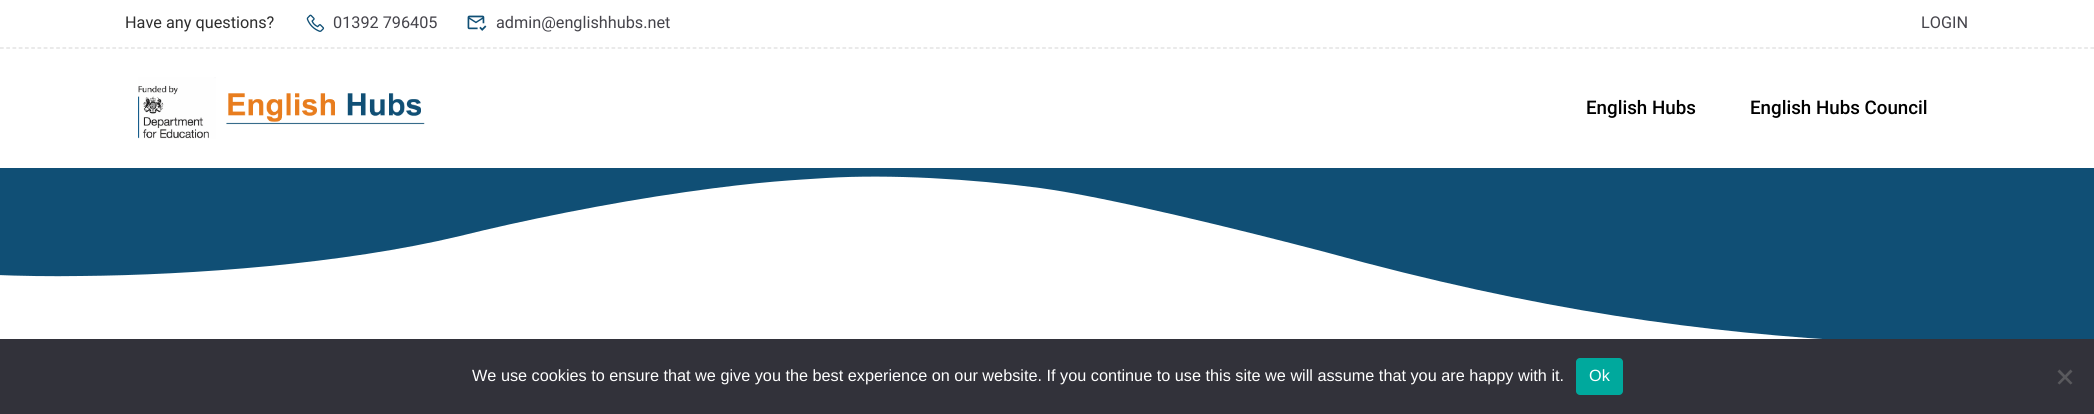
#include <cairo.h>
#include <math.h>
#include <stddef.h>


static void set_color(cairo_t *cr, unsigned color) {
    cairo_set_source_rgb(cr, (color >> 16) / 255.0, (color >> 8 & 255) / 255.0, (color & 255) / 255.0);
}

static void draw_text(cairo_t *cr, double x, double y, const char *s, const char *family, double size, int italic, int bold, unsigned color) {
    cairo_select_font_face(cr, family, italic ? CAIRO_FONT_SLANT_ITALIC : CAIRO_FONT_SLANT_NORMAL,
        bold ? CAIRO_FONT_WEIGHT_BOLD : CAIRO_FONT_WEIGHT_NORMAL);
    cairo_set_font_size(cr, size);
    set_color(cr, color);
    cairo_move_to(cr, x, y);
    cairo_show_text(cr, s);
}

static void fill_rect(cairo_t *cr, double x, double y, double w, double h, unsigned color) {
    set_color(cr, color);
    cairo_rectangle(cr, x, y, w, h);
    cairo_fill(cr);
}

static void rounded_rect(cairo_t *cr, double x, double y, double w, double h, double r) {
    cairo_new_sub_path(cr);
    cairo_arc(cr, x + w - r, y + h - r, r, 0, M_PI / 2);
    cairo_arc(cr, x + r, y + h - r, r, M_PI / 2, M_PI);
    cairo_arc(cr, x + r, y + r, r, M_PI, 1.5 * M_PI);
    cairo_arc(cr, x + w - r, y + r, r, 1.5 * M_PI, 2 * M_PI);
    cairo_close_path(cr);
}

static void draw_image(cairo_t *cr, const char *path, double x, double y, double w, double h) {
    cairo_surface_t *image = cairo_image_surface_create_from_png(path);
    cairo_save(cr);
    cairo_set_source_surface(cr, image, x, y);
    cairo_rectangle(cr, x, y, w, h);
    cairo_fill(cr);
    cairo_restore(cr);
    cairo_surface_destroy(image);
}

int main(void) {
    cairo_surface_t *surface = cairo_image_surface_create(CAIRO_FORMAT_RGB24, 2094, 414);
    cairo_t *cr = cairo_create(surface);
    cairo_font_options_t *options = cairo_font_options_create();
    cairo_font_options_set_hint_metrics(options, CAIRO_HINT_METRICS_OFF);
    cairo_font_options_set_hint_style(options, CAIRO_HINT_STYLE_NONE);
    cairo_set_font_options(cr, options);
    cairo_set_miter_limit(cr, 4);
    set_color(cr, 0xFFFFFF);
    cairo_paint(cr);
    set_color(cr, 0x104F75);
    cairo_new_path(cr);
    cairo_move_to(cr, 826, 178);
    cairo_curve_to(cr, 890, 174, 972, 179, 1040, 188);
    cairo_curve_to(cr, 1107, 197, 1241, 230, 1325, 252);
    cairo_curve_to(cr, 1539, 311, 1703, 333, 1870, 342);
    cairo_curve_to(cr, 1936, 346, 2007, 349, 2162, 338);
    cairo_curve_to(cr, 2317, 327, 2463, 291, 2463, 291);
    cairo_line_to(cr, 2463, 166);
    cairo_line_to(cr, -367, 166);
    cairo_line_to(cr, -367, 221);
    cairo_curve_to(cr, -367, 221, -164, 280, 81, 276);
    cairo_curve_to(cr, 192, 275, 343, 264, 460, 236);
    cairo_curve_to(cr, 520, 221, 608, 203, 686, 192);
    cairo_curve_to(cr, 763, 181, 797, 180, 826, 178);
    cairo_close_path(cr);
    cairo_fill(cr);
    fill_rect(cr, 0, 166, 2094, 2, 0xFFFFFF);
    cairo_new_path(cr);
    cairo_move_to(cr, 0, 48);
    cairo_line_to(cr, 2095, 48);
    set_color(cr, 0xDDDDDD);
    cairo_set_line_width(cr, 1.2);
    cairo_set_dash(cr, (double[]){3.75, 2.49}, 2, 0);
    cairo_stroke(cr);
    draw_text(cr, 125, 28, "Have any questions?", "Roboto", 16.25, 0, 0, 0x2E2E2E);
    draw_image(cr, "assets/img1.png", 306, 14, 19, 18);
    draw_text(cr, 333, 28, "01392 796405", "Roboto", 16.25, 0, 0, 0x45444B);
    draw_image(cr, "assets/img2.png", 467, 15, 20, 16);
    draw_text(cr, 496, 28, "admin@englishhubs.net", "Roboto", 16.25, 0, 0, 0x45444B);
    draw_text(cr, 1921, 28, "LOGIN", "Roboto", 16.25, 0, 0, 0x45444B);
    draw_image(cr, "assets/img3.png", 138, 77, 287, 62);
    draw_text(cr, 1586, 114, "English Hubs", "Roboto Medium", 18.75, 0, 0, 0x000000);
    draw_text(cr, 1750, 114, "English Hubs Council", "Roboto Medium", 18.75, 0, 0, 0x000000);
    fill_rect(cr, 0, 339, 2094, 75, 0x32323A);
    draw_text(cr, 472, 381, "We use cookies to ensure that we give you the best experience on our website. If you continue to use this site we will assume that you are happy with it.", "Liberation Sans", 16.25, 0, 0, 0xFFFFFF);
    set_color(cr, 0x00A99D);
    rounded_rect(cr, 1576, 358, 47, 37, 4);
    cairo_fill(cr);
    draw_text(cr, 1589, 381, "Ok", "Liberation Sans", 16.25, 0, 0, 0xFFFFFF);
    set_color(cr, 0x59595D);
    cairo_new_path(cr);
    cairo_move_to(cr, 2070.5, 369.5);
    cairo_line_to(cr, 2072.5, 371.5);
    cairo_line_to(cr, 2059.5, 384.5);
    cairo_line_to(cr, 2057.5, 383);
    cairo_close_path(cr);
    cairo_fill(cr);
    cairo_new_path(cr);
    cairo_move_to(cr, 2057.5, 371.5);
    cairo_line_to(cr, 2059.5, 369.5);
    cairo_line_to(cr, 2072.5, 383);
    cairo_line_to(cr, 2070.5, 384.5);
    cairo_close_path(cr);
    cairo_fill(cr);
    cairo_surface_write_to_png(surface, "output.png");
    cairo_font_options_destroy(options);
    cairo_destroy(cr);
    cairo_surface_destroy(surface);
    return 0;
}
